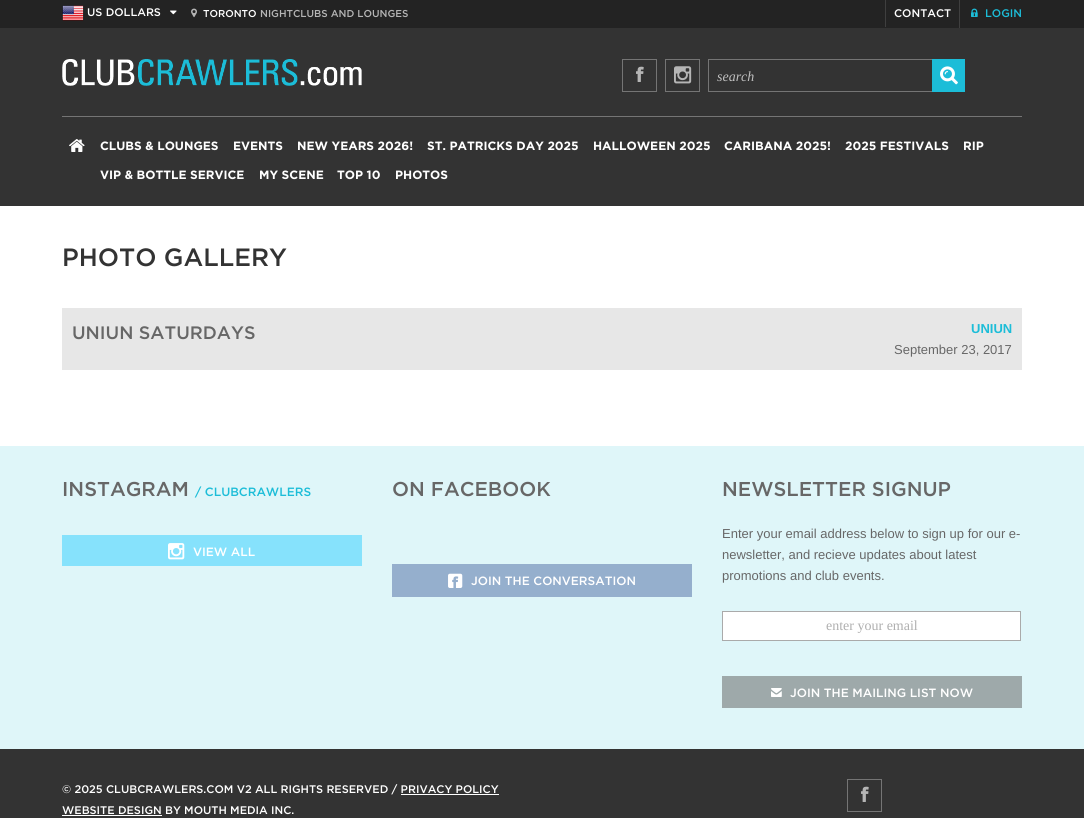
#include <cairo.h>
#include <math.h>
#include <stddef.h>


static void set_color(cairo_t *cr, unsigned color) {
    cairo_set_source_rgb(cr, (color >> 16) / 255.0, (color >> 8 & 255) / 255.0, (color & 255) / 255.0);
}

static void draw_text(cairo_t *cr, double x, double y, const char *s, const char *family, double size, int italic, int bold, unsigned color) {
    cairo_select_font_face(cr, family, italic ? CAIRO_FONT_SLANT_ITALIC : CAIRO_FONT_SLANT_NORMAL,
        bold ? CAIRO_FONT_WEIGHT_BOLD : CAIRO_FONT_WEIGHT_NORMAL);
    cairo_set_font_size(cr, size);
    set_color(cr, color);
    cairo_move_to(cr, x, y);
    cairo_show_text(cr, s);
}

static void fill_rect(cairo_t *cr, double x, double y, double w, double h, unsigned color) {
    set_color(cr, color);
    cairo_rectangle(cr, x, y, w, h);
    cairo_fill(cr);
}

static void draw_image(cairo_t *cr, const char *path, double x, double y, double w, double h) {
    cairo_surface_t *image = cairo_image_surface_create_from_png(path);
    cairo_save(cr);
    cairo_set_source_surface(cr, image, x, y);
    cairo_rectangle(cr, x, y, w, h);
    cairo_fill(cr);
    cairo_restore(cr);
    cairo_surface_destroy(image);
}

int main(void) {
    cairo_surface_t *surface = cairo_image_surface_create(CAIRO_FORMAT_RGB24, 1084, 818);
    cairo_t *cr = cairo_create(surface);
    cairo_font_options_t *options = cairo_font_options_create();
    cairo_font_options_set_hint_metrics(options, CAIRO_HINT_METRICS_OFF);
    cairo_font_options_set_hint_style(options, CAIRO_HINT_STYLE_NONE);
    cairo_set_font_options(cr, options);
    cairo_set_miter_limit(cr, 4);
    set_color(cr, 0xFFFFFF);
    cairo_paint(cr);
    fill_rect(cr, 0, 28, 1084, 178, 0x333333);
    fill_rect(cr, 0, 0, 1084, 28, 0x232323);
    draw_image(cr, "assets/img1.png", 62, 5, 22, 16);
    draw_text(cr, 87, 16, "US DOLLARS", "Gotham Medium", 11, 0, 0, 0xFFFFFF);
    draw_image(cr, "assets/img2.png", 170, 10, 7, 5);
    draw_image(cr, "assets/img3.png", 191, 8, 6, 10);
    draw_text(cr, 203, 17, "TORONTO", "Gotham Medium", 10, 0, 0, 0xFFFFFF);
    draw_text(cr, 260, 17, "NIGHTCLUBS AND LOUNGES", "Gotham Medium", 10, 0, 0, 0xB5B5B5);
    fill_rect(cr, 885, 0, 1, 27, 0x3F3F3F);
    draw_text(cr, 894, 17, "CONTACT", "Gotham Medium", 11, 0, 0, 0xFFFFFF);
    fill_rect(cr, 959, 0, 1, 28, 0x3F3F3F);
    draw_image(cr, "assets/img4.png", 971, 8, 7, 9);
    draw_text(cr, 985, 17, "LOGIN", "Gotham Medium", 11, 0, 0, 0x1CBDD8);
    draw_image(cr, "assets/img5.png", 62, 59, 300, 27);
    cairo_rectangle(cr, 622.5, 59.5, 34, 32);
    set_color(cr, 0x757575);
    cairo_set_line_width(cr, 1);
    cairo_stroke(cr);
    draw_image(cr, "assets/img6.png", 636, 66, 8, 16);
    cairo_rectangle(cr, 665.5, 59.5, 34, 32);
    cairo_stroke(cr);
    draw_image(cr, "assets/img7.png", 674, 66, 18, 18);
    fill_rect(cr, 708, 59, 224, 1, 0x757575);
    fill_rect(cr, 708, 91, 224, 1, 0x757575);
    fill_rect(cr, 708, 59, 1, 33, 0x757575);
    draw_text(cr, 717, 81, "search", "Liberation Serif", 14, 1, 0, 0xBFBFBF);
    fill_rect(cr, 932, 59, 33, 33, 0x1CBDD8);
    draw_image(cr, "assets/img8.png", 940, 66, 18, 19);
    fill_rect(cr, 62, 116, 960, 1, 0x757575);
    draw_image(cr, "assets/img9.png", 69, 139, 16, 13);
    draw_text(cr, 100, 150, "CLUBS & LOUNGES", "Gotham", 12, 0, 1, 0xFFFFFF);
    draw_text(cr, 233, 150, "EVENTS", "Gotham", 12, 0, 1, 0xFFFFFF);
    draw_text(cr, 297, 150, "NEW YEARS 2026!", "Gotham", 12, 0, 1, 0xFFFFFF);
    draw_text(cr, 427, 150, "ST. PATRICKS DAY 2025", "Gotham", 12, 0, 1, 0xFFFFFF);
    draw_text(cr, 593, 150, "HALLOWEEN 2025", "Gotham", 12, 0, 1, 0xFFFFFF);
    draw_text(cr, 724, 150, "CARIBANA 2025!", "Gotham", 12, 0, 1, 0xFFFFFF);
    draw_text(cr, 845, 150, "2025 FESTIVALS", "Gotham", 12, 0, 1, 0xFFFFFF);
    draw_text(cr, 963, 150, "RIP", "Gotham", 12, 0, 1, 0xFFFFFF);
    draw_text(cr, 100, 179, "VIP & BOTTLE SERVICE", "Gotham", 12, 0, 1, 0xFFFFFF);
    draw_text(cr, 259, 179, "MY SCENE", "Gotham", 12, 0, 1, 0xFFFFFF);
    draw_text(cr, 337, 179, "TOP 10", "Gotham", 12, 0, 1, 0xFFFFFF);
    draw_text(cr, 395, 179, "PHOTOS", "Gotham", 12, 0, 1, 0xFFFFFF);
    draw_text(cr, 62, 266, "PHOTO GALLERY", "Gotham Medium", 25, 0, 0, 0x333333);
    fill_rect(cr, 62, 308, 960, 62, 0xE7E7E7);
    draw_text(cr, 72, 339, "UNIUN SATURDAYS", "Gotham Medium", 18, 0, 0, 0x676767);
    draw_text(cr, 971, 333, "UNIUN", "Liberation Sans", 13, 0, 1, 0x1CBDD8);
    draw_text(cr, 894, 354, "September 23, 2017", "Liberation Sans", 13, 0, 0, 0x676767);
    fill_rect(cr, 0, 446, 1084, 303, 0xDFF6F9);
    draw_text(cr, 62, 496, "INSTAGRAM", "Gotham Medium", 20, 0, 0, 0x676767);
    draw_text(cr, 195, 496, "/ CLUBCRAWLERS", "Gotham Medium", 12, 0, 0, 0x1CBDD8);
    fill_rect(cr, 62, 535, 300, 31, 0x86E2FC);
    draw_image(cr, "assets/img10.png", 168, 543, 17, 17);
    draw_text(cr, 193, 556, "VIEW ALL", "Gotham Medium", 12, 0, 0, 0xFFFFFF);
    draw_text(cr, 392, 496, "ON FACEBOOK", "Gotham Medium", 20, 0, 0, 0x676767);
    fill_rect(cr, 392, 564, 300, 33, 0x95AFCD);
    draw_image(cr, "assets/img11.png", 448, 573, 15, 15);
    draw_text(cr, 471, 585, "JOIN THE CONVERSATION", "Gotham Medium", 12, 0, 0, 0xFFFFFF);
    draw_text(cr, 722, 496, "NEWSLETTER SIGNUP", "Gotham Medium", 20, 0, 0, 0x676767);
    draw_text(cr, 722, 538, "Enter your email address below to sign up for our e-", "Liberation Sans", 13, 0, 0, 0x676767);
    draw_text(cr, 722, 559, "newsletter, and recieve updates about latest", "Liberation Sans", 13, 0, 0, 0x676767);
    draw_text(cr, 722, 580, "promotions and club events.", "Liberation Sans", 13, 0, 0, 0x676767);
    set_color(cr, 0xFFFFFF);
    cairo_rectangle(cr, 722.5, 611.5, 298, 29);
    cairo_fill_preserve(cr);
    set_color(cr, 0xAAAAAA);
    cairo_stroke(cr);
    draw_text(cr, 826, 630, "enter your email", "Liberation Serif", 14, 0, 0, 0xAFAFAF);
    fill_rect(cr, 722, 676, 300, 32, 0x9EA9AA);
    draw_image(cr, "assets/img12.png", 771, 688, 11, 9);
    draw_text(cr, 790, 697, "JOIN THE MAILING LIST NOW", "Gotham Medium", 12, 0, 0, 0xFFFFFF);
    fill_rect(cr, 0, 749, 1084, 69, 0x333333);
    draw_text(cr, 62, 793, "© 2025 CLUBCRAWLERS.COM V2 ALL RIGHTS RESERVED / PRIVACY POLICY", "Gotham Medium", 11, 0, 0, 0xFFFFFF);
    fill_rect(cr, 401, 794, 98, 1, 0xFFFFFF);
    draw_text(cr, 62, 814, "WEBSITE DESIGN BY MOUTH MEDIA INC.", "Gotham Medium", 11, 0, 0, 0xFFFFFF);
    fill_rect(cr, 62, 815, 100, 1, 0xFFFFFF);
    cairo_rectangle(cr, 847.5, 779.5, 34, 32);
    set_color(cr, 0x757575);
    cairo_stroke(cr);
    draw_image(cr, "assets/img6.png", 861, 786, 8, 16);
    cairo_surface_write_to_png(surface, "output.png");
    cairo_font_options_destroy(options);
    cairo_destroy(cr);
    cairo_surface_destroy(surface);
    return 0;
}
